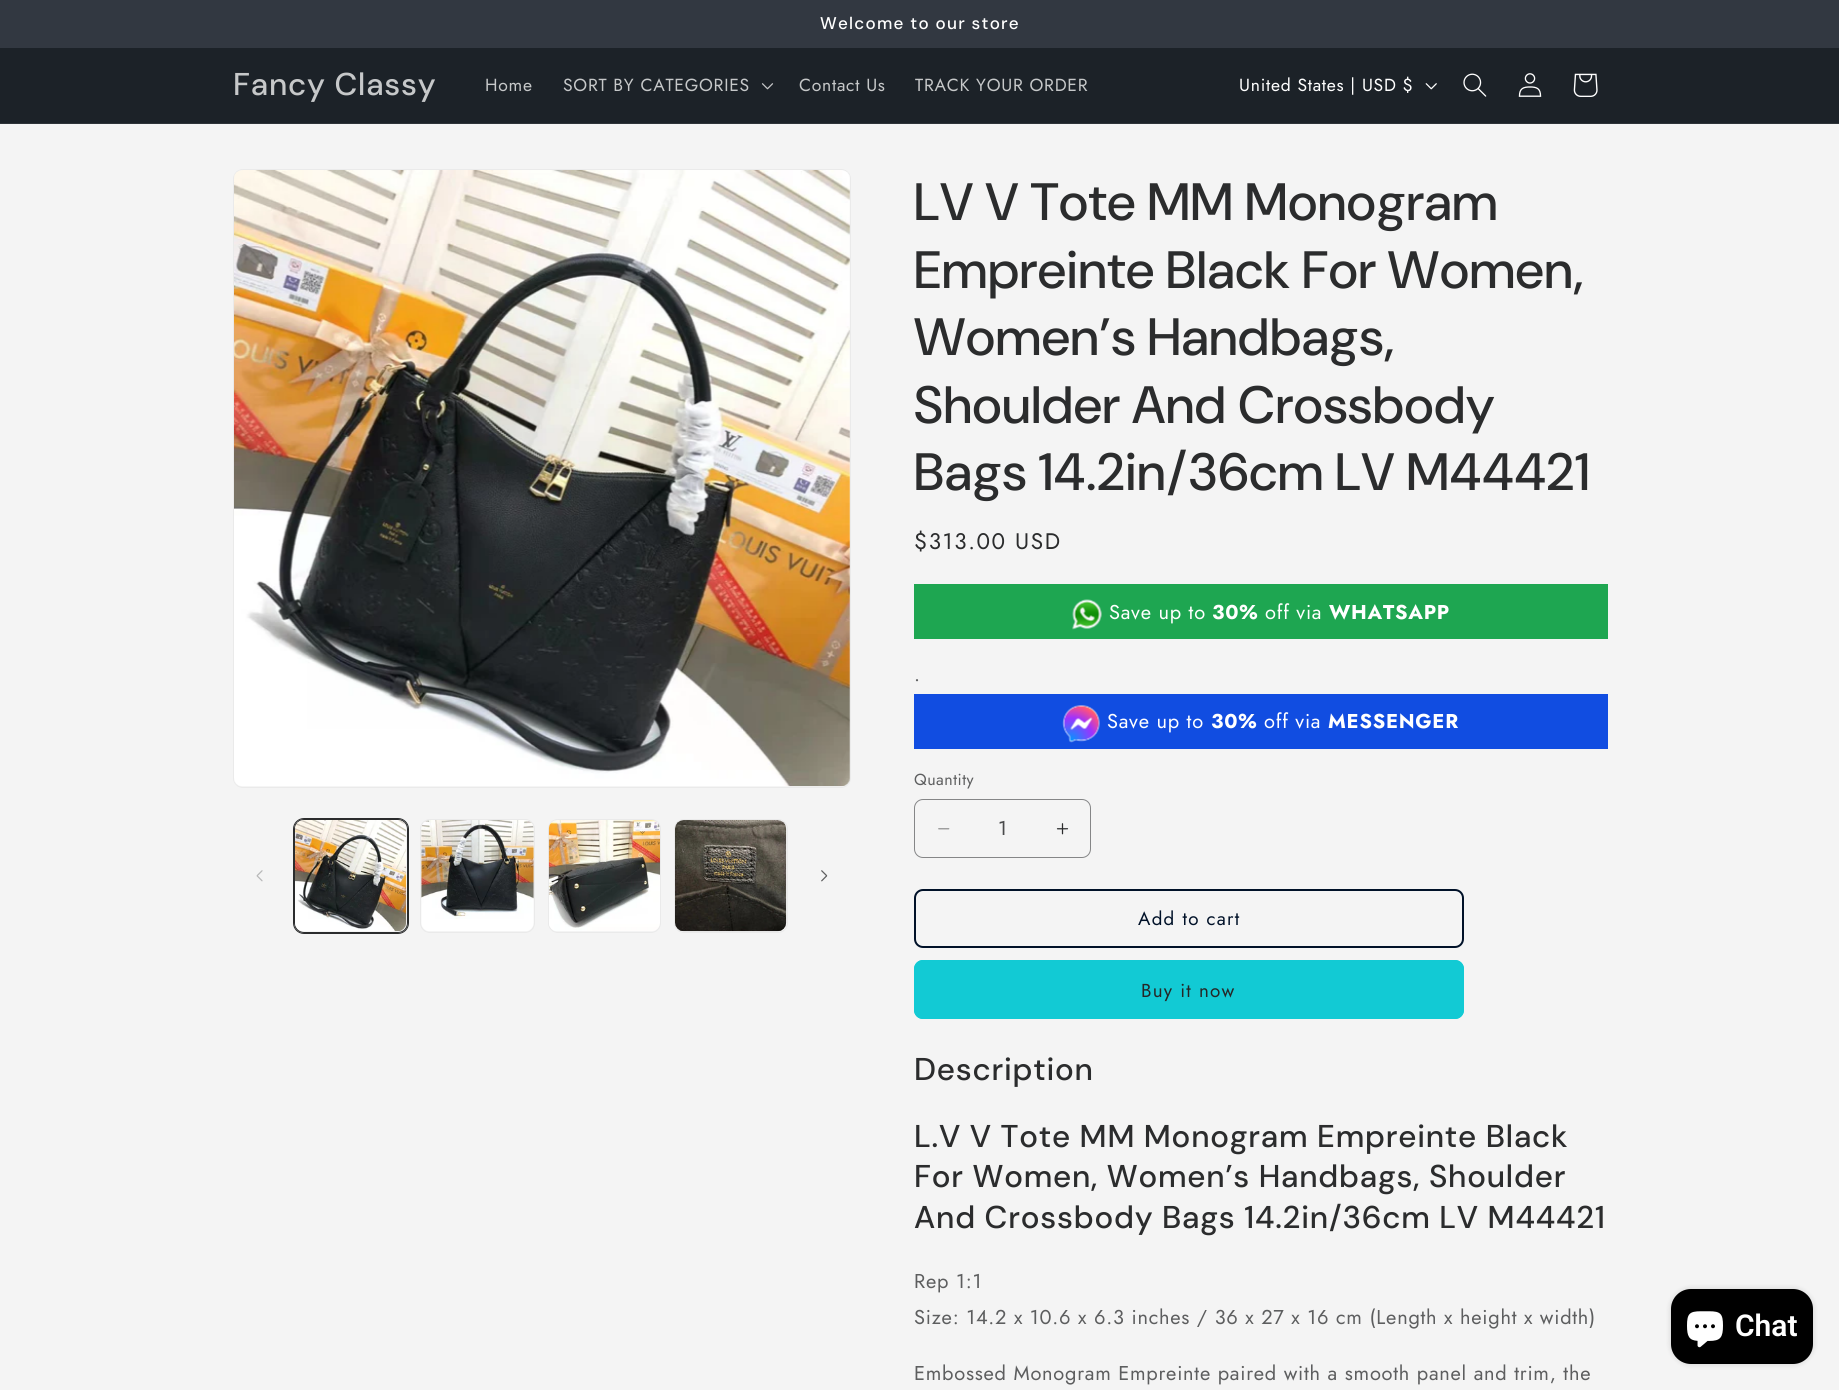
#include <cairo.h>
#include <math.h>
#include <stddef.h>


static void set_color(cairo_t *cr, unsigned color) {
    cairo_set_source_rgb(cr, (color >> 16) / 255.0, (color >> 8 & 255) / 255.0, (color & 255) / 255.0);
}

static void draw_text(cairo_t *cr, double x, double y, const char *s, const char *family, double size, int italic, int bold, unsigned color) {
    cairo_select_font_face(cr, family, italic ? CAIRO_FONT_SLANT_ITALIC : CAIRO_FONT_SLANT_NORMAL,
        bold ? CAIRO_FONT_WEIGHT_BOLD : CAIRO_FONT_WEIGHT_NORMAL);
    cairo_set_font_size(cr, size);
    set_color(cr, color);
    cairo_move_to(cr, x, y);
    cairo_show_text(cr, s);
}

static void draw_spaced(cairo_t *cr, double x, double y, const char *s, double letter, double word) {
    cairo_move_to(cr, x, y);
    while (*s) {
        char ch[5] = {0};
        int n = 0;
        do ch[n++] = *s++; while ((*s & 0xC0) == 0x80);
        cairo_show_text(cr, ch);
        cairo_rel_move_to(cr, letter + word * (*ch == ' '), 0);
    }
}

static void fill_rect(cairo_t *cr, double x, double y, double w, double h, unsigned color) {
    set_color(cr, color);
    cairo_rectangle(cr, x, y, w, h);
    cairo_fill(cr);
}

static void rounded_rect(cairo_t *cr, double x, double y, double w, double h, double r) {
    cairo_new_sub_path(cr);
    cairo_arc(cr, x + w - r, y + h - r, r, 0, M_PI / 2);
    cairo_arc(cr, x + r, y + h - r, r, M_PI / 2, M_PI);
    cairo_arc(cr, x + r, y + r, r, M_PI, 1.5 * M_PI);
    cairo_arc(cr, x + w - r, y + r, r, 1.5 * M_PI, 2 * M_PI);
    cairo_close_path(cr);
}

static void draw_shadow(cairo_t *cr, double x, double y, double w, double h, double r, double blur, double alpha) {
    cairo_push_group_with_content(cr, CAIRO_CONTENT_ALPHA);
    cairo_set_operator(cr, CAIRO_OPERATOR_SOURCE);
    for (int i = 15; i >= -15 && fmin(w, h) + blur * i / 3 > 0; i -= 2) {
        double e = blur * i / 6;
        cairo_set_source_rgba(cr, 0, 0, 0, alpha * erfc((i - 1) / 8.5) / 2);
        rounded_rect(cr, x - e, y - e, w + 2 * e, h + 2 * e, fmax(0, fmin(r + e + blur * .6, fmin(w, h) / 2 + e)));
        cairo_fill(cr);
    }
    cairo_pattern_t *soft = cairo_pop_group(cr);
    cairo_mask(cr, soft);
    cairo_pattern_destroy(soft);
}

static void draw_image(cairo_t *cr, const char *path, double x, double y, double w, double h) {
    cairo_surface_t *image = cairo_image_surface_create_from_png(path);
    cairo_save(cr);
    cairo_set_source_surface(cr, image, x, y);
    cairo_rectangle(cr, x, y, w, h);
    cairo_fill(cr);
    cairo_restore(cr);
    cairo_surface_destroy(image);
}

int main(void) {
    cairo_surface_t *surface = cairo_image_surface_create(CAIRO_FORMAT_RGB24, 1839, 1390);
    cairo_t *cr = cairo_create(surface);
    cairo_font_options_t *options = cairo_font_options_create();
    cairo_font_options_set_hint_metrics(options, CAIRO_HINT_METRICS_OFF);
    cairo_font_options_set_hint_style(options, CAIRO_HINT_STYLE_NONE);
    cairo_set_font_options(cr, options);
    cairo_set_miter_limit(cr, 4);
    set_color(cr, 0xF4F4F4);
    cairo_paint(cr);
    fill_rect(cr, 0, 0, 1839, 48, 0x323841);
    cairo_select_font_face(cr, "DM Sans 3 Medium", CAIRO_FONT_SLANT_NORMAL, CAIRO_FONT_WEIGHT_NORMAL);
    cairo_set_font_size(cr, 17);
    set_color(cr, 0xFFFFFF);
    draw_spaced(cr, 820, 29, "Welcome to our store", 1.25, 0);
    fill_rect(cr, 0, 48, 1839, 75, 0x1C2228);
    fill_rect(cr, 0, 123, 1839, 1, 0x2E3439);
    cairo_select_font_face(cr, "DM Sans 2 Medium", CAIRO_FONT_SLANT_NORMAL, CAIRO_FONT_WEIGHT_NORMAL);
    cairo_set_font_size(cr, 31.5);
    set_color(cr, 0xC6C8C9);
    draw_spaced(cr, 233, 95, "Fancy Classy", 0.8, 0);
    cairo_select_font_face(cr, "Jost", CAIRO_FONT_SLANT_NORMAL, CAIRO_FONT_WEIGHT_NORMAL);
    cairo_set_font_size(cr, 17.5);
    draw_spaced(cr, 485, 91, "Home", 0.75, 0);
    draw_spaced(cr, 563, 91, "SORT BY CATEGORIES", 0.75, 0);
    draw_image(cr, "assets/img1.png", 761, 83, 13, 7);
    draw_spaced(cr, 799, 91, "Contact Us", 0.75, 0);
    draw_spaced(cr, 915, 91, "TRACK YOUR ORDER", 0.75, 0);
    set_color(cr, 0xFFFFFF);
    draw_spaced(cr, 1239, 91, "United States | USD $", 0.75, 0);
    draw_image(cr, "assets/img2.png", 1425, 83, 12, 7);
    draw_image(cr, "assets/img3.png", 1463, 73, 24, 24);
    draw_image(cr, "assets/img4.png", 1518, 73, 24, 24);
    draw_image(cr, "assets/img5.png", 1573, 73, 25, 24);
    rounded_rect(cr, 233.5, 169.5, 617, 618, 9.5);
    set_color(cr, 0xEAEAEA);
    cairo_set_line_width(cr, 1);
    cairo_stroke(cr);
    draw_image(cr, "assets/img6.png", 234, 170, 616, 617);
    draw_image(cr, "assets/img7.png", 256, 870, 7, 12);
    rounded_rect(cr, 293.5, 818.5, 115, 115, 10.5);
    set_color(cr, 0x2B2C2D);
    cairo_stroke(cr);
    rounded_rect(cr, 294.5, 819.5, 113, 113, 9.5);
    cairo_stroke(cr);
    draw_image(cr, "assets/img8.png", 295, 820, 112, 112);
    rounded_rect(cr, 420.5, 819.5, 114, 113, 9.5);
    set_color(cr, 0xEAEAEA);
    cairo_stroke(cr);
    draw_image(cr, "assets/img9.png", 421, 820, 113, 111);
    rounded_rect(cr, 548.5, 819.5, 112, 113, 9.5);
    cairo_stroke(cr);
    draw_image(cr, "assets/img10.png", 548, 820, 112, 111);
    rounded_rect(cr, 674.5, 819.5, 113, 113, 9.5);
    cairo_stroke(cr);
    draw_image(cr, "assets/img11.png", 675, 820, 112, 112);
    draw_image(cr, "assets/img12.png", 821, 870, 7, 12);
    cairo_select_font_face(cr, "DM Sans Medium", CAIRO_FONT_SLANT_NORMAL, CAIRO_FONT_WEIGHT_NORMAL);
    cairo_set_font_size(cr, 52.5);
    set_color(cr, 0x2B2C2D);
    draw_spaced(cr, 914, 220, "LV V Tote MM Monogram", 0.8, 0);
    draw_spaced(cr, 914, 288, "Empreinte Black For Women,", 0.8, 0);
    draw_spaced(cr, 914, 355, "Women’s Handbags,", 0.8, 0);
    draw_spaced(cr, 914, 423, "Shoulder And Crossbody", 0.8, 0);
    draw_spaced(cr, 914, 490, "Bags 14.2in/36cm LV M44421", 0.8, 0);
    cairo_select_font_face(cr, "Jost", CAIRO_FONT_SLANT_NORMAL, CAIRO_FONT_WEIGHT_NORMAL);
    cairo_set_font_size(cr, 22.5);
    draw_spaced(cr, 914, 549, "$313.00 USD", 1.6, 0);
    fill_rect(cr, 914, 584, 694, 55, 0x1EA651);
    draw_image(cr, "assets/img13.png", 1072, 599, 30, 31);
    cairo_set_font_size(cr, 20);
    set_color(cr, 0xFFFFFF);
    draw_spaced(cr, 1109, 619, "Save up to", 0.75, 0);
    cairo_select_font_face(cr, "Jost", CAIRO_FONT_SLANT_NORMAL, CAIRO_FONT_WEIGHT_BOLD);
    draw_spaced(cr, 1212, 619, "30%", 0.75, 0);
    cairo_select_font_face(cr, "Jost", CAIRO_FONT_SLANT_NORMAL, CAIRO_FONT_WEIGHT_NORMAL);
    draw_spaced(cr, 1265, 619, "off via", 0.75, 0);
    cairo_select_font_face(cr, "Jost", CAIRO_FONT_SLANT_NORMAL, CAIRO_FONT_WEIGHT_BOLD);
    draw_spaced(cr, 1329, 619, "WHATSAPP", 0.75, 0);
    cairo_select_font_face(cr, "Jost", CAIRO_FONT_SLANT_NORMAL, CAIRO_FONT_WEIGHT_NORMAL);
    set_color(cr, 0x5D5E5F);
    draw_spaced(cr, 914, 681, ".", 0.75, 0);
    fill_rect(cr, 914, 694, 694, 55, 0x114DE1);
    draw_image(cr, "assets/img14.png", 1062, 705, 38, 38);
    set_color(cr, 0xFFFFFF);
    draw_spaced(cr, 1107, 728, "Save up to", 0.75, 0);
    cairo_select_font_face(cr, "Jost", CAIRO_FONT_SLANT_NORMAL, CAIRO_FONT_WEIGHT_BOLD);
    draw_spaced(cr, 1211, 728, "30%", 0.75, 0);
    cairo_select_font_face(cr, "Jost", CAIRO_FONT_SLANT_NORMAL, CAIRO_FONT_WEIGHT_NORMAL);
    draw_spaced(cr, 1264, 728, "off via", 0.75, 0);
    cairo_select_font_face(cr, "Jost", CAIRO_FONT_SLANT_NORMAL, CAIRO_FONT_WEIGHT_BOLD);
    draw_spaced(cr, 1328, 728, "MESSENGER", 0.75, 0);
    cairo_select_font_face(cr, "Jost", CAIRO_FONT_SLANT_NORMAL, CAIRO_FONT_WEIGHT_NORMAL);
    cairo_set_font_size(cr, 16);
    set_color(cr, 0x5D5E5F);
    draw_spaced(cr, 914, 785, "Quantity", 0.5, 0);
    draw_image(cr, "assets/img15.png", 938, 828, 12, 2);
    draw_image(cr, "assets/img16.png", 1056, 823, 13, 12);
    rounded_rect(cr, 914.5, 799.5, 176, 58, 8.5);
    set_color(cr, 0x858687);
    cairo_stroke(cr);
    draw_text(cr, 998, 835, "1", "Jost", 20, 0, 0, 0x494A4B);
    rounded_rect(cr, 915, 890, 548, 57, 8);
    set_color(cr, 0x001128);
    cairo_set_line_width(cr, 2);
    cairo_stroke(cr);
    cairo_set_font_size(cr, 18.75);
    draw_spaced(cr, 1138, 925, "Add to cart", 1.25, 0);
    set_color(cr, 0x12CAD4);
    rounded_rect(cr, 914, 960, 550, 59, 9);
    cairo_fill(cr);
    rounded_rect(cr, 914.5, 960.5, 549, 58, 8.5);
    cairo_set_line_width(cr, 1);
    cairo_stroke(cr);
    set_color(cr, 0x262626);
    draw_spaced(cr, 1141, 997, "Buy it now", 1.25, 0);
    cairo_select_font_face(cr, "DM Sans 2 Medium", CAIRO_FONT_SLANT_NORMAL, CAIRO_FONT_WEIGHT_NORMAL);
    cairo_set_font_size(cr, 31.5);
    set_color(cr, 0x2B2C2D);
    draw_spaced(cr, 914, 1080, "Description", 0.8, 0);
    draw_spaced(cr, 914, 1147, "L.V V Tote MM Monogram Empreinte Black", 0.8, 0);
    draw_spaced(cr, 914, 1187, "For Women, Women’s Handbags, Shoulder", 0.8, 0);
    draw_spaced(cr, 914, 1228, "And Crossbody Bags 14.2in/36cm LV M44421", 0.8, 0);
    cairo_select_font_face(cr, "Jost", CAIRO_FONT_SLANT_NORMAL, CAIRO_FONT_WEIGHT_NORMAL);
    cairo_set_font_size(cr, 20);
    set_color(cr, 0x5D5E5F);
    draw_spaced(cr, 914, 1288, "Rep 1:1", 0.75, 0);
    draw_spaced(cr, 914, 1324, "Size: 14.2 x 10.6 x 6.3 inches / 36 x 27 x 16 cm (Length x height x width)", 0.75, 0);
    draw_spaced(cr, 914, 1380, "Embossed Monogram Empreinte paired with a smooth panel and trim, the", 0.75, 0);
    set_color(cr, 0x000000);
    draw_shadow(cr, 1671, 1289, 142, 75, 20, 3, 0.15);
    set_color(cr, 0x000000);
    rounded_rect(cr, 1671, 1289, 142, 75, 20);
    cairo_fill(cr);
    draw_image(cr, "assets/img17.png", 1687, 1311, 36, 37);
    draw_text(cr, 1735, 1336, "Chat", "Roboto SemiBold", 30, 0, 0, 0xFFFFFF);
    cairo_surface_write_to_png(surface, "output.png");
    cairo_font_options_destroy(options);
    cairo_destroy(cr);
    cairo_surface_destroy(surface);
    return 0;
}
